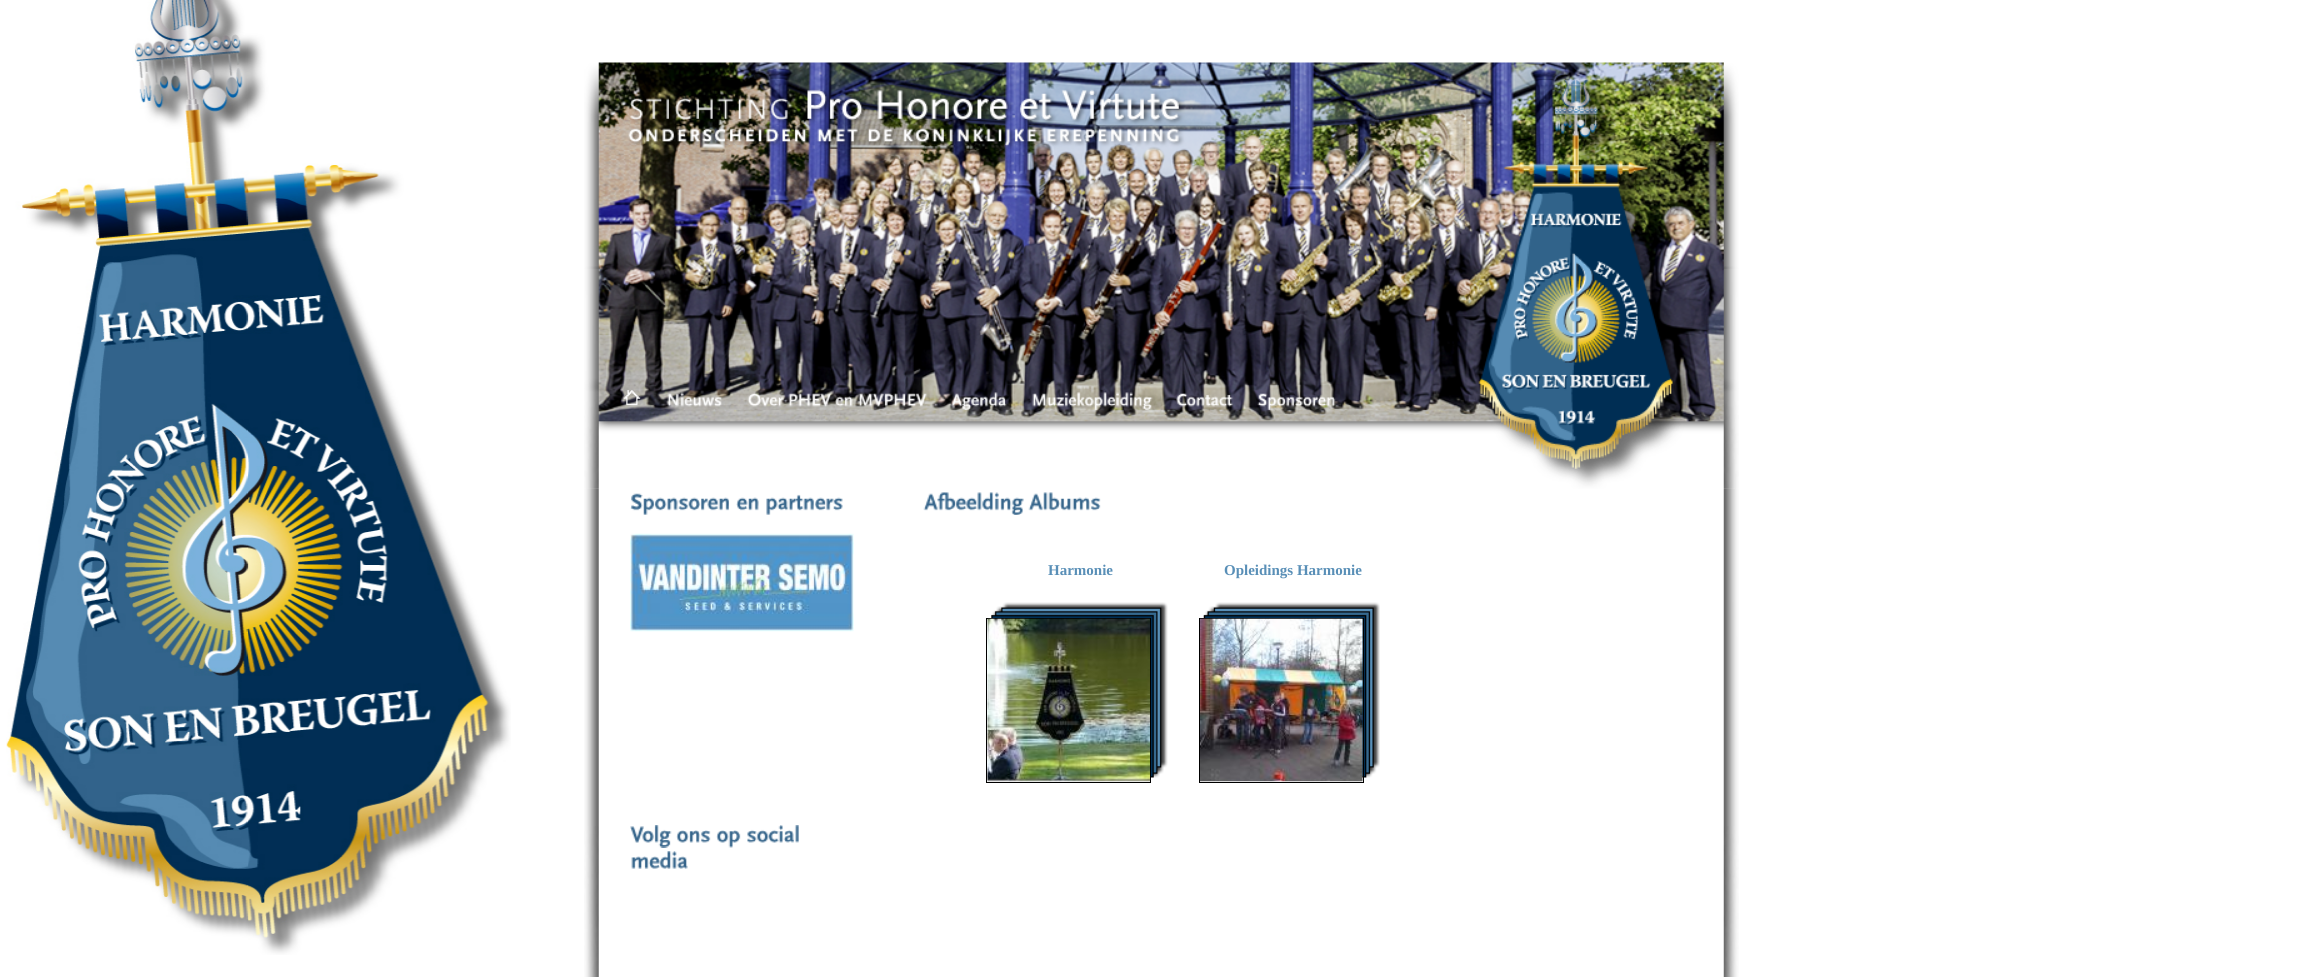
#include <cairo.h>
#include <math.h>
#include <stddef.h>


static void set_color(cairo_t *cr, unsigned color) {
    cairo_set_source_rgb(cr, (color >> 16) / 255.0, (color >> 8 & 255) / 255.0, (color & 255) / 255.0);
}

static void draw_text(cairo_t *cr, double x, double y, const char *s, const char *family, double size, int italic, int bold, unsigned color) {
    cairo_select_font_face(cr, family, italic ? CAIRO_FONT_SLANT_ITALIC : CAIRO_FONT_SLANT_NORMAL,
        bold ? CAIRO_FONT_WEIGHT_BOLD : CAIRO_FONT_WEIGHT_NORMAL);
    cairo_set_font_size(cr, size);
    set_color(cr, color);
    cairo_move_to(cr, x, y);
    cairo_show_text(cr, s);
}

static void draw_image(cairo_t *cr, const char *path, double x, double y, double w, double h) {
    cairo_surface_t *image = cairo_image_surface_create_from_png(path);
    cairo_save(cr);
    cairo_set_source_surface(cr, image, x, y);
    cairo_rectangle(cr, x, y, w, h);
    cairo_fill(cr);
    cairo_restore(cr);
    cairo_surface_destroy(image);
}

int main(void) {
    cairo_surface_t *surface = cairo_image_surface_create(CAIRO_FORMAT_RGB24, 2322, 977);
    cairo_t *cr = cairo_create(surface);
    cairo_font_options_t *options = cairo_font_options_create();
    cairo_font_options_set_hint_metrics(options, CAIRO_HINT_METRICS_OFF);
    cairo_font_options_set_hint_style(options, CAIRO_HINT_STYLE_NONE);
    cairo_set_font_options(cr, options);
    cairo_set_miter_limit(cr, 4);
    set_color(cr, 0xFFFFFF);
    cairo_paint(cr);
    draw_image(cr, "assets/img1.png", 6, 0, 505, 955);
    draw_image(cr, "assets/img2.png", 584, 62, 1155, 427);
    draw_image(cr, "assets/img3.png", 623, 390, 18, 16);
    draw_image(cr, "assets/img4.png", 667, 392, 55, 15);
    draw_image(cr, "assets/img5.png", 747, 393, 37, 14);
    draw_image(cr, "assets/img6.png", 788, 393, 44, 14);
    draw_image(cr, "assets/img7.png", 835, 396, 18, 11);
    draw_image(cr, "assets/img8.png", 858, 393, 69, 14);
    draw_image(cr, "assets/img9.png", 951, 392, 56, 18);
    draw_image(cr, "assets/img10.png", 1032, 392, 121, 18);
    draw_image(cr, "assets/img11.png", 1176, 393, 57, 14);
    draw_image(cr, "assets/img12.png", 1257, 393, 79, 17);
    draw_image(cr, "assets/img13.png", 584, 488, 1155, 489);
    draw_image(cr, "assets/img14.png", 630, 493, 99, 22);
    draw_image(cr, "assets/img15.png", 736, 497, 23, 14);
    draw_image(cr, "assets/img16.png", 766, 494, 77, 21);
    draw_image(cr, "assets/img17.png", 630, 533, 224, 99);
    draw_image(cr, "assets/img18.png", 630, 825, 42, 23);
    draw_image(cr, "assets/img19.png", 676, 830, 35, 13);
    draw_image(cr, "assets/img20.png", 716, 830, 25, 18);
    draw_image(cr, "assets/img21.png", 747, 825, 52, 18);
    draw_image(cr, "assets/img22.png", 631, 851, 57, 18);
    draw_image(cr, "assets/img23.png", 923, 492, 101, 23);
    draw_image(cr, "assets/img24.png", 1028, 492, 73, 19);
    draw_text(cr, 1048, 575, "Harmonie", "Liberation Serif", 15, 0, 1, 0x598FB7);
    draw_image(cr, "assets/img25.png", 991, 602, 177, 176);
    cairo_rectangle(cr, 986.5, 618.5, 164, 164);
    set_color(cr, 0x000000);
    cairo_set_line_width(cr, 1);
    cairo_stroke(cr);
    draw_image(cr, "assets/img26.png", 987, 618, 163, 164);
    draw_text(cr, 1224, 575, "Opleidings Harmonie", "Liberation Serif", 15, 0, 1, 0x598FB7);
    draw_image(cr, "assets/img27.png", 1203, 602, 177, 176);
    cairo_rectangle(cr, 1199.5, 618.5, 164, 164);
    set_color(cr, 0x000000);
    cairo_stroke(cr);
    draw_image(cr, "assets/img28.png", 1200, 618, 163, 164);
    cairo_surface_write_to_png(surface, "output.png");
    cairo_font_options_destroy(options);
    cairo_destroy(cr);
    cairo_surface_destroy(surface);
    return 0;
}
